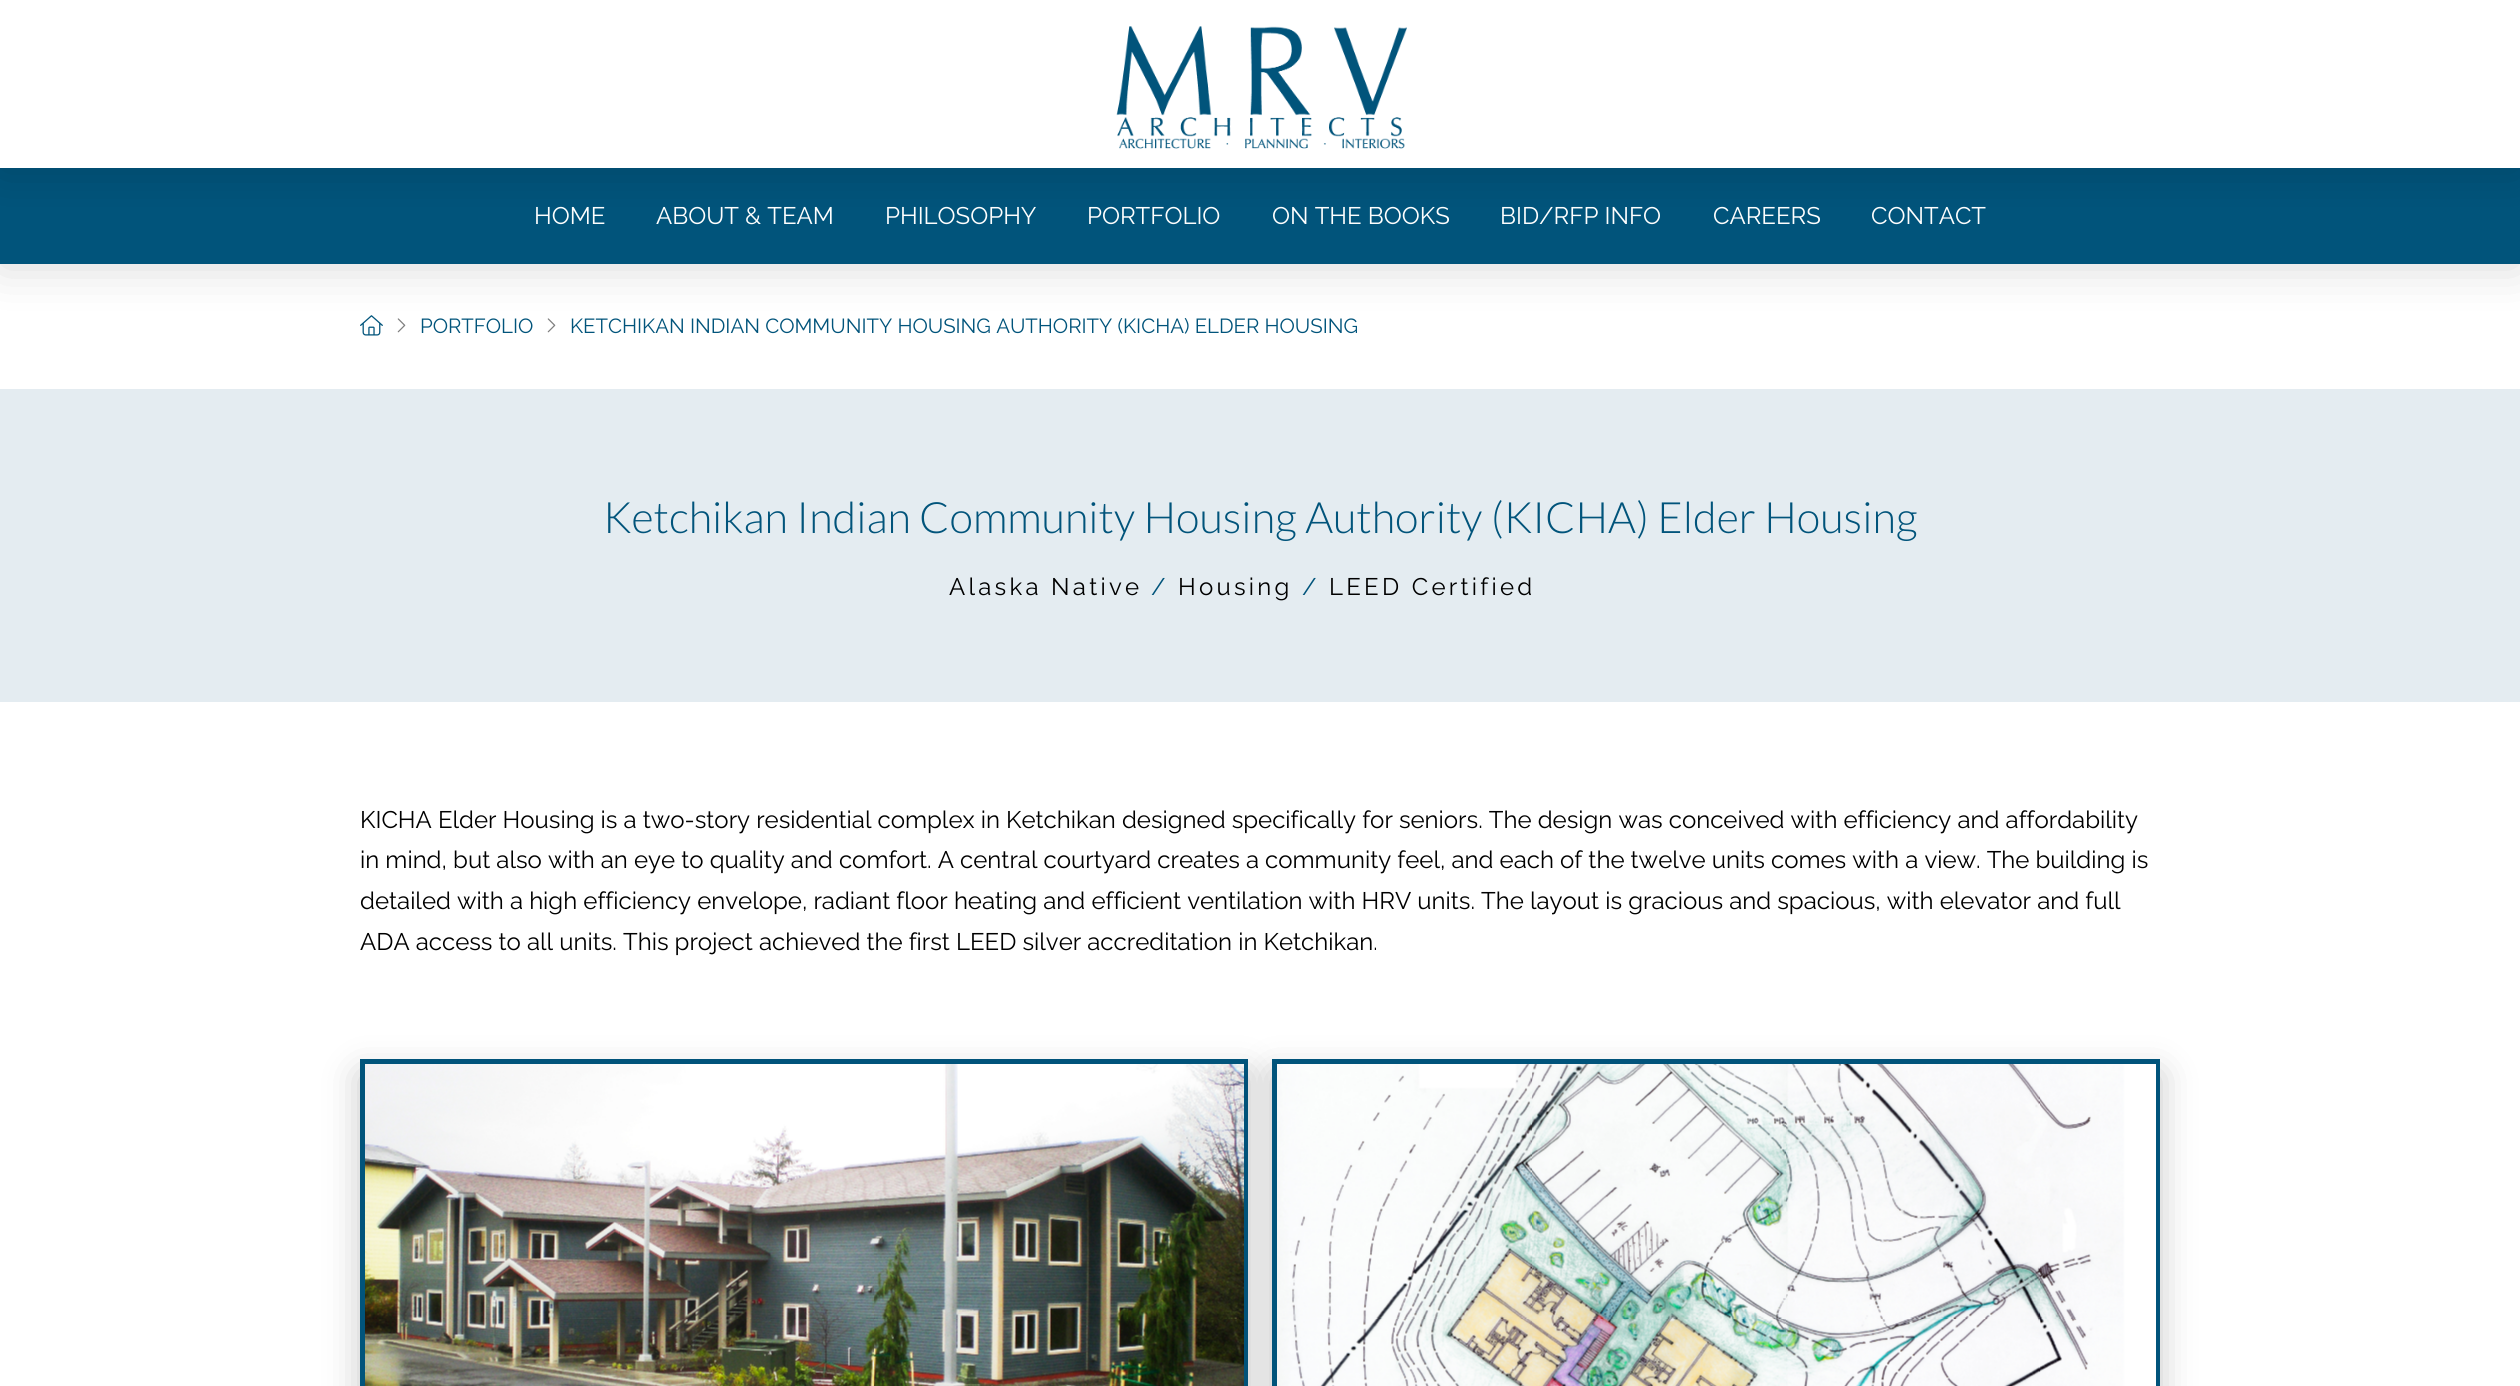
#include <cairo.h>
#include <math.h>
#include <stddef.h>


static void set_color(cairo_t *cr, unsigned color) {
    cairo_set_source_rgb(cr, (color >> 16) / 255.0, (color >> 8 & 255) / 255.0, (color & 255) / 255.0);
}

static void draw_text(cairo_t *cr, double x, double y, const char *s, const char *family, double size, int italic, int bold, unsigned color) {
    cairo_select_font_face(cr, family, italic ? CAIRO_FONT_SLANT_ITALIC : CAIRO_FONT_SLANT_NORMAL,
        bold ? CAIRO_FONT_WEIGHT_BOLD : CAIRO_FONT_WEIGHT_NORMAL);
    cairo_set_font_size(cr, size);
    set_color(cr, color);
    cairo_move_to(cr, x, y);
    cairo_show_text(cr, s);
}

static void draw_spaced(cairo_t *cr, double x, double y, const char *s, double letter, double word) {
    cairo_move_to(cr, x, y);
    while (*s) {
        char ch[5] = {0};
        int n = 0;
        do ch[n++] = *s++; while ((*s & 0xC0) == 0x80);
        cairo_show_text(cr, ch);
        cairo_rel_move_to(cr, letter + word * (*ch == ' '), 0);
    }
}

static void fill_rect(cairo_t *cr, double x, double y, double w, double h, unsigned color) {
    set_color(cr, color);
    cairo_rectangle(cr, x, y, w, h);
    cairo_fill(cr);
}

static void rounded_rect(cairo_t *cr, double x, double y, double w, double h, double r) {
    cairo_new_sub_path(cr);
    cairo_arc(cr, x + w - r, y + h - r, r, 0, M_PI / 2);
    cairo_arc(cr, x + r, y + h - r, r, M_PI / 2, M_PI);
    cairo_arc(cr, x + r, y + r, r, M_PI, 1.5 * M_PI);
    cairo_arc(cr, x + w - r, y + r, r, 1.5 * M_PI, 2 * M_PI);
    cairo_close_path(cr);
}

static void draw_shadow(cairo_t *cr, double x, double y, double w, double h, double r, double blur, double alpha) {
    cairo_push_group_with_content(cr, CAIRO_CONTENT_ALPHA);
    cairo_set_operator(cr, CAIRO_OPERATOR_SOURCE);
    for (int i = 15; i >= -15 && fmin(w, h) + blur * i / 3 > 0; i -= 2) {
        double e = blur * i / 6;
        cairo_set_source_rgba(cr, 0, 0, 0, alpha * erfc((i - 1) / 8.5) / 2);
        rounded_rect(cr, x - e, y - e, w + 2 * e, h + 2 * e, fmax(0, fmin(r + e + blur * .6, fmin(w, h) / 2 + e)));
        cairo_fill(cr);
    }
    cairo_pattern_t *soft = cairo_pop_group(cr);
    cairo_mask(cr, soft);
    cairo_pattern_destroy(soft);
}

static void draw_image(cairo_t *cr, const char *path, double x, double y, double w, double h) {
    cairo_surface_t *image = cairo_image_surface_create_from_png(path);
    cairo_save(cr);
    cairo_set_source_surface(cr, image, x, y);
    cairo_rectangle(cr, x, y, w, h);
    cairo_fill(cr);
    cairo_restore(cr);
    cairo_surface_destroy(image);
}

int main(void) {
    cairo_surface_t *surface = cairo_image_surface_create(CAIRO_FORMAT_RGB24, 2520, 1386);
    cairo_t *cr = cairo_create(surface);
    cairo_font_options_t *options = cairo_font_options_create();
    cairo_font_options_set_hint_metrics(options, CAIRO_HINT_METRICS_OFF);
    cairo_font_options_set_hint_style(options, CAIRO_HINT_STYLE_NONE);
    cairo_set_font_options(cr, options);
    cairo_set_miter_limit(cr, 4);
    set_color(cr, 0xFFFFFF);
    cairo_paint(cr);
    set_color(cr, 0x000000);
    draw_shadow(cr, 0, 171, 2520, 96, 0, 24, 0.15);
    fill_rect(cr, 0, 168, 2520, 96, 0x01547B);
    set_color(cr, 0x000000);
    draw_shadow(cr, 0, 3, 2520, 168, 0, 24, 0.15);
    fill_rect(cr, 0, 0, 2520, 168, 0xFFFFFF);
    draw_image(cr, "assets/img1.png", 1116, 26, 291, 123);
    draw_text(cr, 534, 224, "HOME", "Raleway", 24, 0, 0, 0xFEFEFE);
    draw_text(cr, 656, 224, "ABOUT & TEAM", "Raleway", 24, 0, 0, 0xFEFEFE);
    draw_text(cr, 885, 224, "PHILOSOPHY", "Raleway", 24, 0, 0, 0xFEFEFE);
    draw_text(cr, 1087, 224, "PORTFOLIO", "Raleway", 24, 0, 0, 0xFEFEFE);
    draw_text(cr, 1272, 224, "ON THE BOOKS", "Raleway", 24, 0, 0, 0xFEFEFE);
    draw_text(cr, 1500, 224, "BID/RFP INFO", "Raleway", 24, 0, 0, 0xFEFEFE);
    draw_text(cr, 1713, 224, "CAREERS", "Raleway", 24, 0, 0, 0xFEFEFE);
    draw_text(cr, 1871, 224, "CONTACT", "Raleway", 24, 0, 0, 0xFEFEFE);
    draw_image(cr, "assets/img2.png", 360, 315, 23, 21);
    draw_image(cr, "assets/img3.png", 397, 318, 9, 15);
    draw_text(cr, 420, 333, "PORTFOLIO", "Raleway", 20.4, 0, 0, 0x01547B);
    draw_image(cr, "assets/img3.png", 547, 318, 9, 15);
    draw_text(cr, 570, 333, "KETCHIKAN INDIAN COMMUNITY HOUSING AUTHORITY (KICHA) ELDER HOUSING", "Raleway", 20.4, 0, 0, 0x01547B);
    fill_rect(cr, 0, 389, 2520, 313, 0xE4ECF1);
    draw_text(cr, 603, 533, "Ketchikan Indian Community Housing Authority (KICHA) Elder Housing", "Lato Light", 43.2, 0, 0, 0x01547B);
    cairo_select_font_face(cr, "Raleway", CAIRO_FONT_SLANT_NORMAL, CAIRO_FONT_WEIGHT_NORMAL);
    cairo_set_font_size(cr, 24);
    set_color(cr, 0x000000);
    draw_spaced(cr, 949, 595, "Alaska Native", 3.25, 0);
    draw_text(cr, 1151, 595, "/", "Raleway", 24, 0, 0, 0x01547B);
    set_color(cr, 0x000000);
    draw_spaced(cr, 1178, 595, "Housing", 3.25, 0);
    draw_text(cr, 1302, 595, "/", "Raleway", 24, 0, 0, 0x01547B);
    set_color(cr, 0x000000);
    draw_spaced(cr, 1329, 595, "LEED Certified", 3.25, 0);
    draw_text(cr, 360, 828, "KICHA Elder Housing is a two-story residential complex in Ketchikan designed specifically for seniors. The design was conceived with efficiency and affordability", "Raleway", 24, 0, 0, 0x000000);
    draw_text(cr, 360, 868, "in mind, but also with an eye to quality and comfort. A central courtyard creates a community feel, and each of the twelve units comes with a view. The building is", "Raleway", 24, 0, 0, 0x000000);
    draw_text(cr, 360, 909, "detailed with a high efficiency envelope, radiant floor heating and efficient ventilation with HRV units. The layout is gracious and spacious, with elevator and full", "Raleway", 24, 0, 0, 0x000000);
    draw_text(cr, 360, 950, "ADA access to all units. This project achieved the first LEED silver accreditation in Ketchikan.", "Raleway", 24, 0, 0, 0x000000);
    set_color(cr, 0x000000);
    draw_shadow(cr, 360, 1074, 888, 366, 0, 18, 0.22);
    cairo_rectangle(cr, 362.5, 1061.5, 883, 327);
    set_color(cr, 0x01547B);
    cairo_set_line_width(cr, 5);
    cairo_stroke(cr);
    draw_image(cr, "assets/img4.png", 365, 1064, 879, 322);
    set_color(cr, 0x000000);
    draw_shadow(cr, 1272, 1074, 888, 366, 0, 18, 0.22);
    cairo_rectangle(cr, 1274.5, 1061.5, 883, 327);
    set_color(cr, 0x01547B);
    cairo_stroke(cr);
    draw_image(cr, "assets/img5.png", 1277, 1064, 879, 322);
    cairo_surface_write_to_png(surface, "output.png");
    cairo_font_options_destroy(options);
    cairo_destroy(cr);
    cairo_surface_destroy(surface);
    return 0;
}
